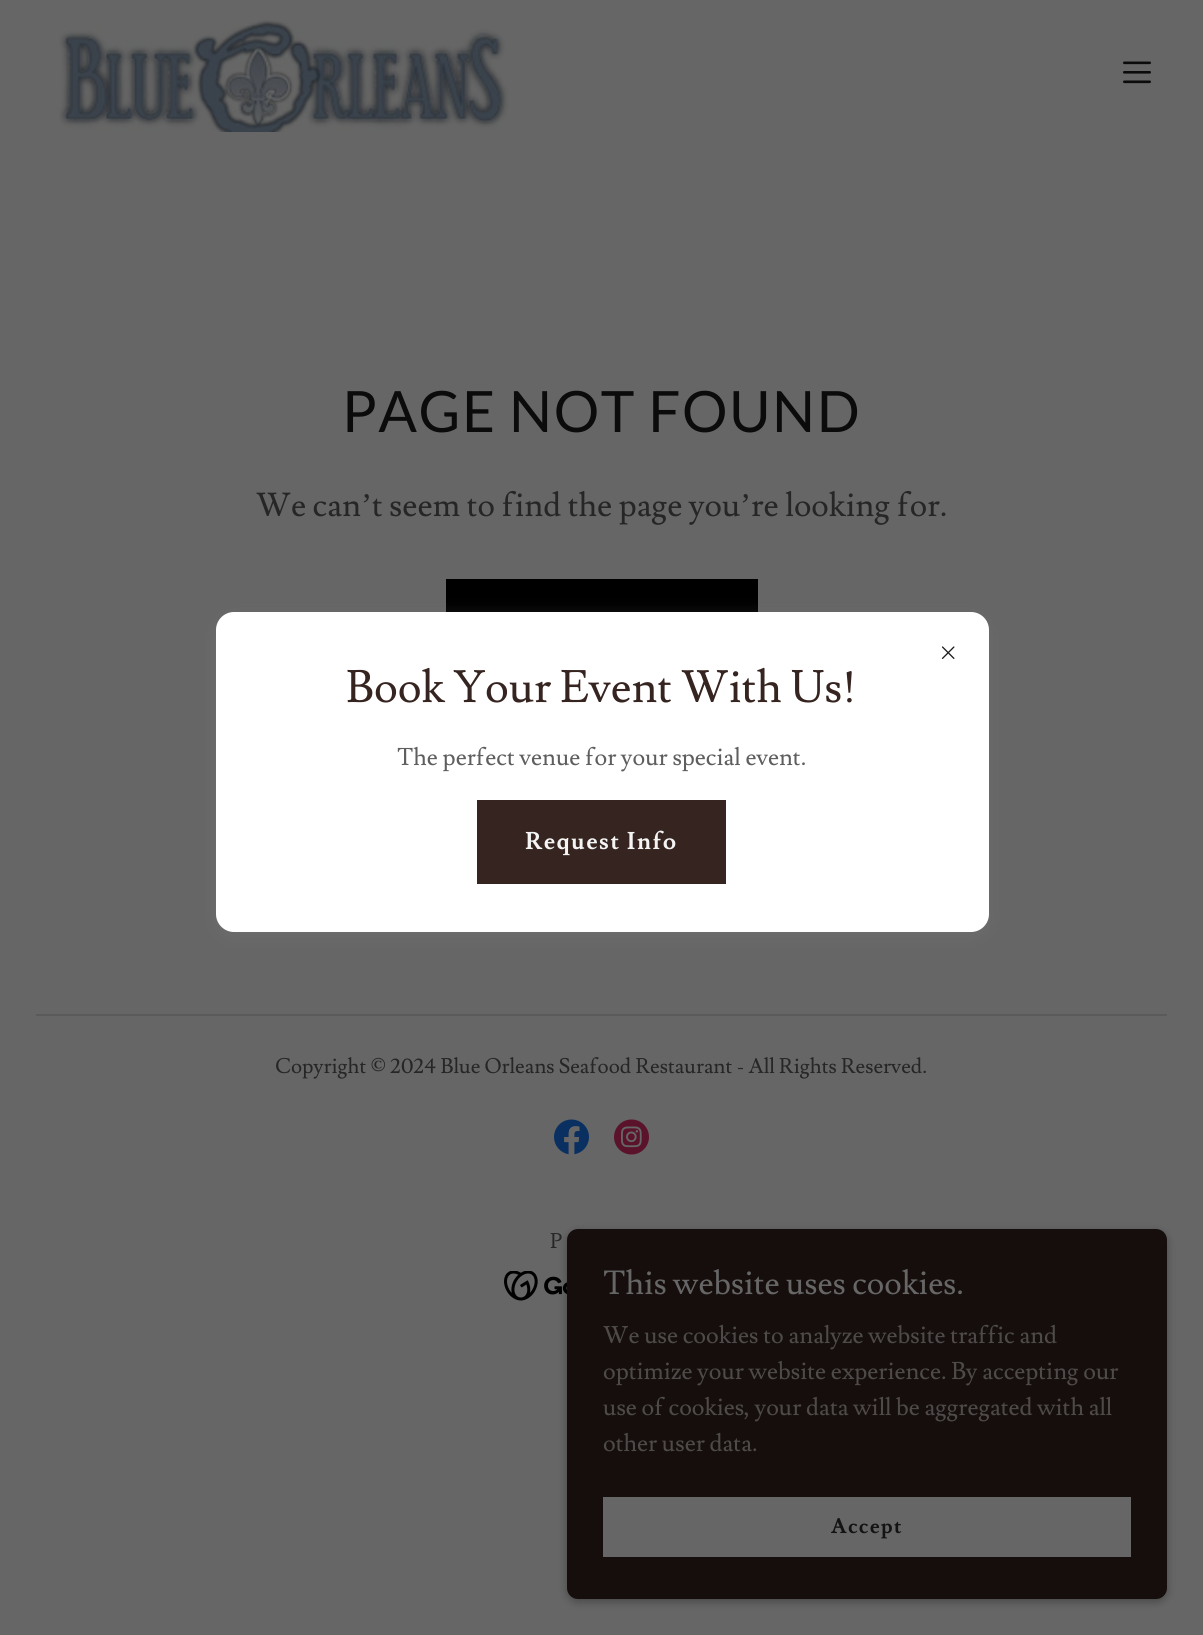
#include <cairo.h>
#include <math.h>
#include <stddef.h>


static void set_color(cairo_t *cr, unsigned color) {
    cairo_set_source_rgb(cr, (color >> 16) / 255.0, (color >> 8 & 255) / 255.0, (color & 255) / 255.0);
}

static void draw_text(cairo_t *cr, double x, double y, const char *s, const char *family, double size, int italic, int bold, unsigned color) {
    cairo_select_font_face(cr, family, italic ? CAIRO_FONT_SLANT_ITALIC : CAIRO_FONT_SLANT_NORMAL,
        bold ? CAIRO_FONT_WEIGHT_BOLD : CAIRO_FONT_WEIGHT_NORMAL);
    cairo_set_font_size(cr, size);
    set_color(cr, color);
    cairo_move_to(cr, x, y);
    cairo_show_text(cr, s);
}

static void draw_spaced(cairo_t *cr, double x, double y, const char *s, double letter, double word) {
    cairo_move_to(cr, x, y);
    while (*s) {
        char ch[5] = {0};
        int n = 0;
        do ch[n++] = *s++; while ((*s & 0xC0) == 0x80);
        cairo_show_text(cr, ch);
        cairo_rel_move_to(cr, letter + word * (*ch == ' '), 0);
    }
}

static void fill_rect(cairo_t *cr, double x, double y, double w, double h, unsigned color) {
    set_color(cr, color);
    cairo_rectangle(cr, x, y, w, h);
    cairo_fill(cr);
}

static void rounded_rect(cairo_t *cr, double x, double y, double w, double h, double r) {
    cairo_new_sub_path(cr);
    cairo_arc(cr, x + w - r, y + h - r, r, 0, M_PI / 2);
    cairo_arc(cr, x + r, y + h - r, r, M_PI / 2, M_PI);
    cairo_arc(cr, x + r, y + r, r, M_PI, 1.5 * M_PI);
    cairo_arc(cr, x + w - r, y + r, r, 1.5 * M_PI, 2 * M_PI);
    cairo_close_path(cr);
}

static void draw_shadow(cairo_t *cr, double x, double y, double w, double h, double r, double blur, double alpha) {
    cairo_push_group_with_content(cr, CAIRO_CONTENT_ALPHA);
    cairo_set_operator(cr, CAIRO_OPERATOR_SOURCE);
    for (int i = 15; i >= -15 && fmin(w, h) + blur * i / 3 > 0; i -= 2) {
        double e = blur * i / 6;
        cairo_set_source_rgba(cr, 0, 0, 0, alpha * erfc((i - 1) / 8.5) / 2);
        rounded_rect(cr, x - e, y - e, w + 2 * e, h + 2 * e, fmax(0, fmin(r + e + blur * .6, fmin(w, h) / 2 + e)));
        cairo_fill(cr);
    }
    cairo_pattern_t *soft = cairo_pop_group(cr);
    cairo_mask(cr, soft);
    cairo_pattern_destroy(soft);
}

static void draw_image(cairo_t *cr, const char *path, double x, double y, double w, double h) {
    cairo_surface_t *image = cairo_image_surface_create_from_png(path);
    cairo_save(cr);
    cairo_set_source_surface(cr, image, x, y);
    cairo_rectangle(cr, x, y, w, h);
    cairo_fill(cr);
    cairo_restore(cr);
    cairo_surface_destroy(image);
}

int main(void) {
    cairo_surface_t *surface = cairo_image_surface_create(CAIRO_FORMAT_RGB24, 1203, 1635);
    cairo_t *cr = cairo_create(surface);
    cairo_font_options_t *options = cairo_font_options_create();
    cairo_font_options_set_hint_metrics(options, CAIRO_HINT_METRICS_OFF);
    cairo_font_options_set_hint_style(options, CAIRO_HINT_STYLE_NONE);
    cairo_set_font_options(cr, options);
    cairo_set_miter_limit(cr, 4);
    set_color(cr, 0x666666);
    cairo_paint(cr);
    draw_image(cr, "assets/img1.png", 59, 20, 450, 112);
    draw_image(cr, "assets/img2.png", 1123, 61, 28, 23);
    cairo_select_font_face(cr, "Lato", CAIRO_FONT_SLANT_NORMAL, CAIRO_FONT_WEIGHT_NORMAL);
    cairo_set_font_size(cr, 57);
    set_color(cr, 0x0B0B0B);
    draw_spaced(cr, 342, 432, "PAGE NOT FOUND", 1.5, 0);
    draw_text(cr, 256, 516, "We can", "Lusitana", 33, 0, 0, 0x262626);
    draw_text(cr, 361, 516, "’", "Liberation Serif", 33, 0, 0, 0x262626);
    draw_text(cr, 372, 516, "t seem to find the page you", "Lusitana", 33, 0, 0, 0x262626);
    draw_text(cr, 740, 516, "’", "Liberation Serif", 33, 0, 0, 0x262626);
    draw_text(cr, 751, 516, "re looking for.", "Lusitana", 33, 0, 0, 0x262626);
    fill_rect(cr, 446, 579, 312, 33, 0x000000);
    set_color(cr, 0x757575);
    draw_shadow(cr, 216, 618, 773, 320, 18, 9, 0.4);
    set_color(cr, 0xFFFFFF);
    rounded_rect(cr, 216, 612, 773, 320, 18);
    cairo_fill(cr);
    draw_image(cr, "assets/img3.png", 941, 646, 14, 13);
    draw_text(cr, 346, 702, "Book Your Event With Us!", "Lusitana", 45, 0, 0, 0x35241F);
    draw_text(cr, 397, 765, "The perfect venue for your special event.", "Lusitana", 24, 0, 0, 0x5E5E5E);
    fill_rect(cr, 477, 800, 249, 84, 0x35241F);
    cairo_select_font_face(cr, "Lusitana", CAIRO_FONT_SLANT_NORMAL, CAIRO_FONT_WEIGHT_BOLD);
    set_color(cr, 0xF4F4F4);
    draw_spaced(cr, 525, 849, "Request Info", 1.5, 0);
    fill_rect(cr, 36, 1014, 1131, 2, 0x5A5A5A);
    draw_text(cr, 275, 1073, "Copyright © 2024 Blue Orleans Seafood Restaurant - All Rights Reserved.", "Lusitana", 21, 0, 0, 0x262626);
    draw_image(cr, "assets/img4.png", 554, 1119, 35, 36);
    draw_image(cr, "assets/img5.png", 614, 1119, 35, 36);
    draw_text(cr, 550, 1248, "P", "Lusitana", 21, 0, 0, 0x262626);
    draw_image(cr, "assets/img6.png", 504, 1271, 63, 30);
    set_color(cr, 0x000000);
    draw_shadow(cr, 567, 1232, 600, 370, 11, 4.5, 0.3);
    set_color(cr, 0x150E0C);
    rounded_rect(cr, 567, 1229, 600, 370, 11);
    cairo_fill(cr);
    draw_text(cr, 603, 1294, "This website uses cookies.", "Lusitana", 33, 0, 0, 0x666666);
    draw_text(cr, 603, 1343, "We use cookies to analyze website traffic and", "Lusitana", 24, 0, 0, 0x4E4A49);
    draw_text(cr, 603, 1379, "optimize your website experience. By accepting our", "Lusitana", 24, 0, 0, 0x4E4A49);
    draw_text(cr, 603, 1415, "use of cookies, your data will be aggregated with all", "Lusitana", 24, 0, 0, 0x4E4A49);
    draw_text(cr, 603, 1451, "other user data.", "Lusitana", 24, 0, 0, 0x4E4A49);
    fill_rect(cr, 603, 1497, 528, 60, 0x666666);
    cairo_select_font_face(cr, "Lusitana", CAIRO_FONT_SLANT_NORMAL, CAIRO_FONT_WEIGHT_BOLD);
    cairo_set_font_size(cr, 21);
    set_color(cr, 0x131313);
    draw_spaced(cr, 831, 1533, "Accept", 1.25, 0);
    cairo_surface_write_to_png(surface, "output.png");
    cairo_font_options_destroy(options);
    cairo_destroy(cr);
    cairo_surface_destroy(surface);
    return 0;
}
